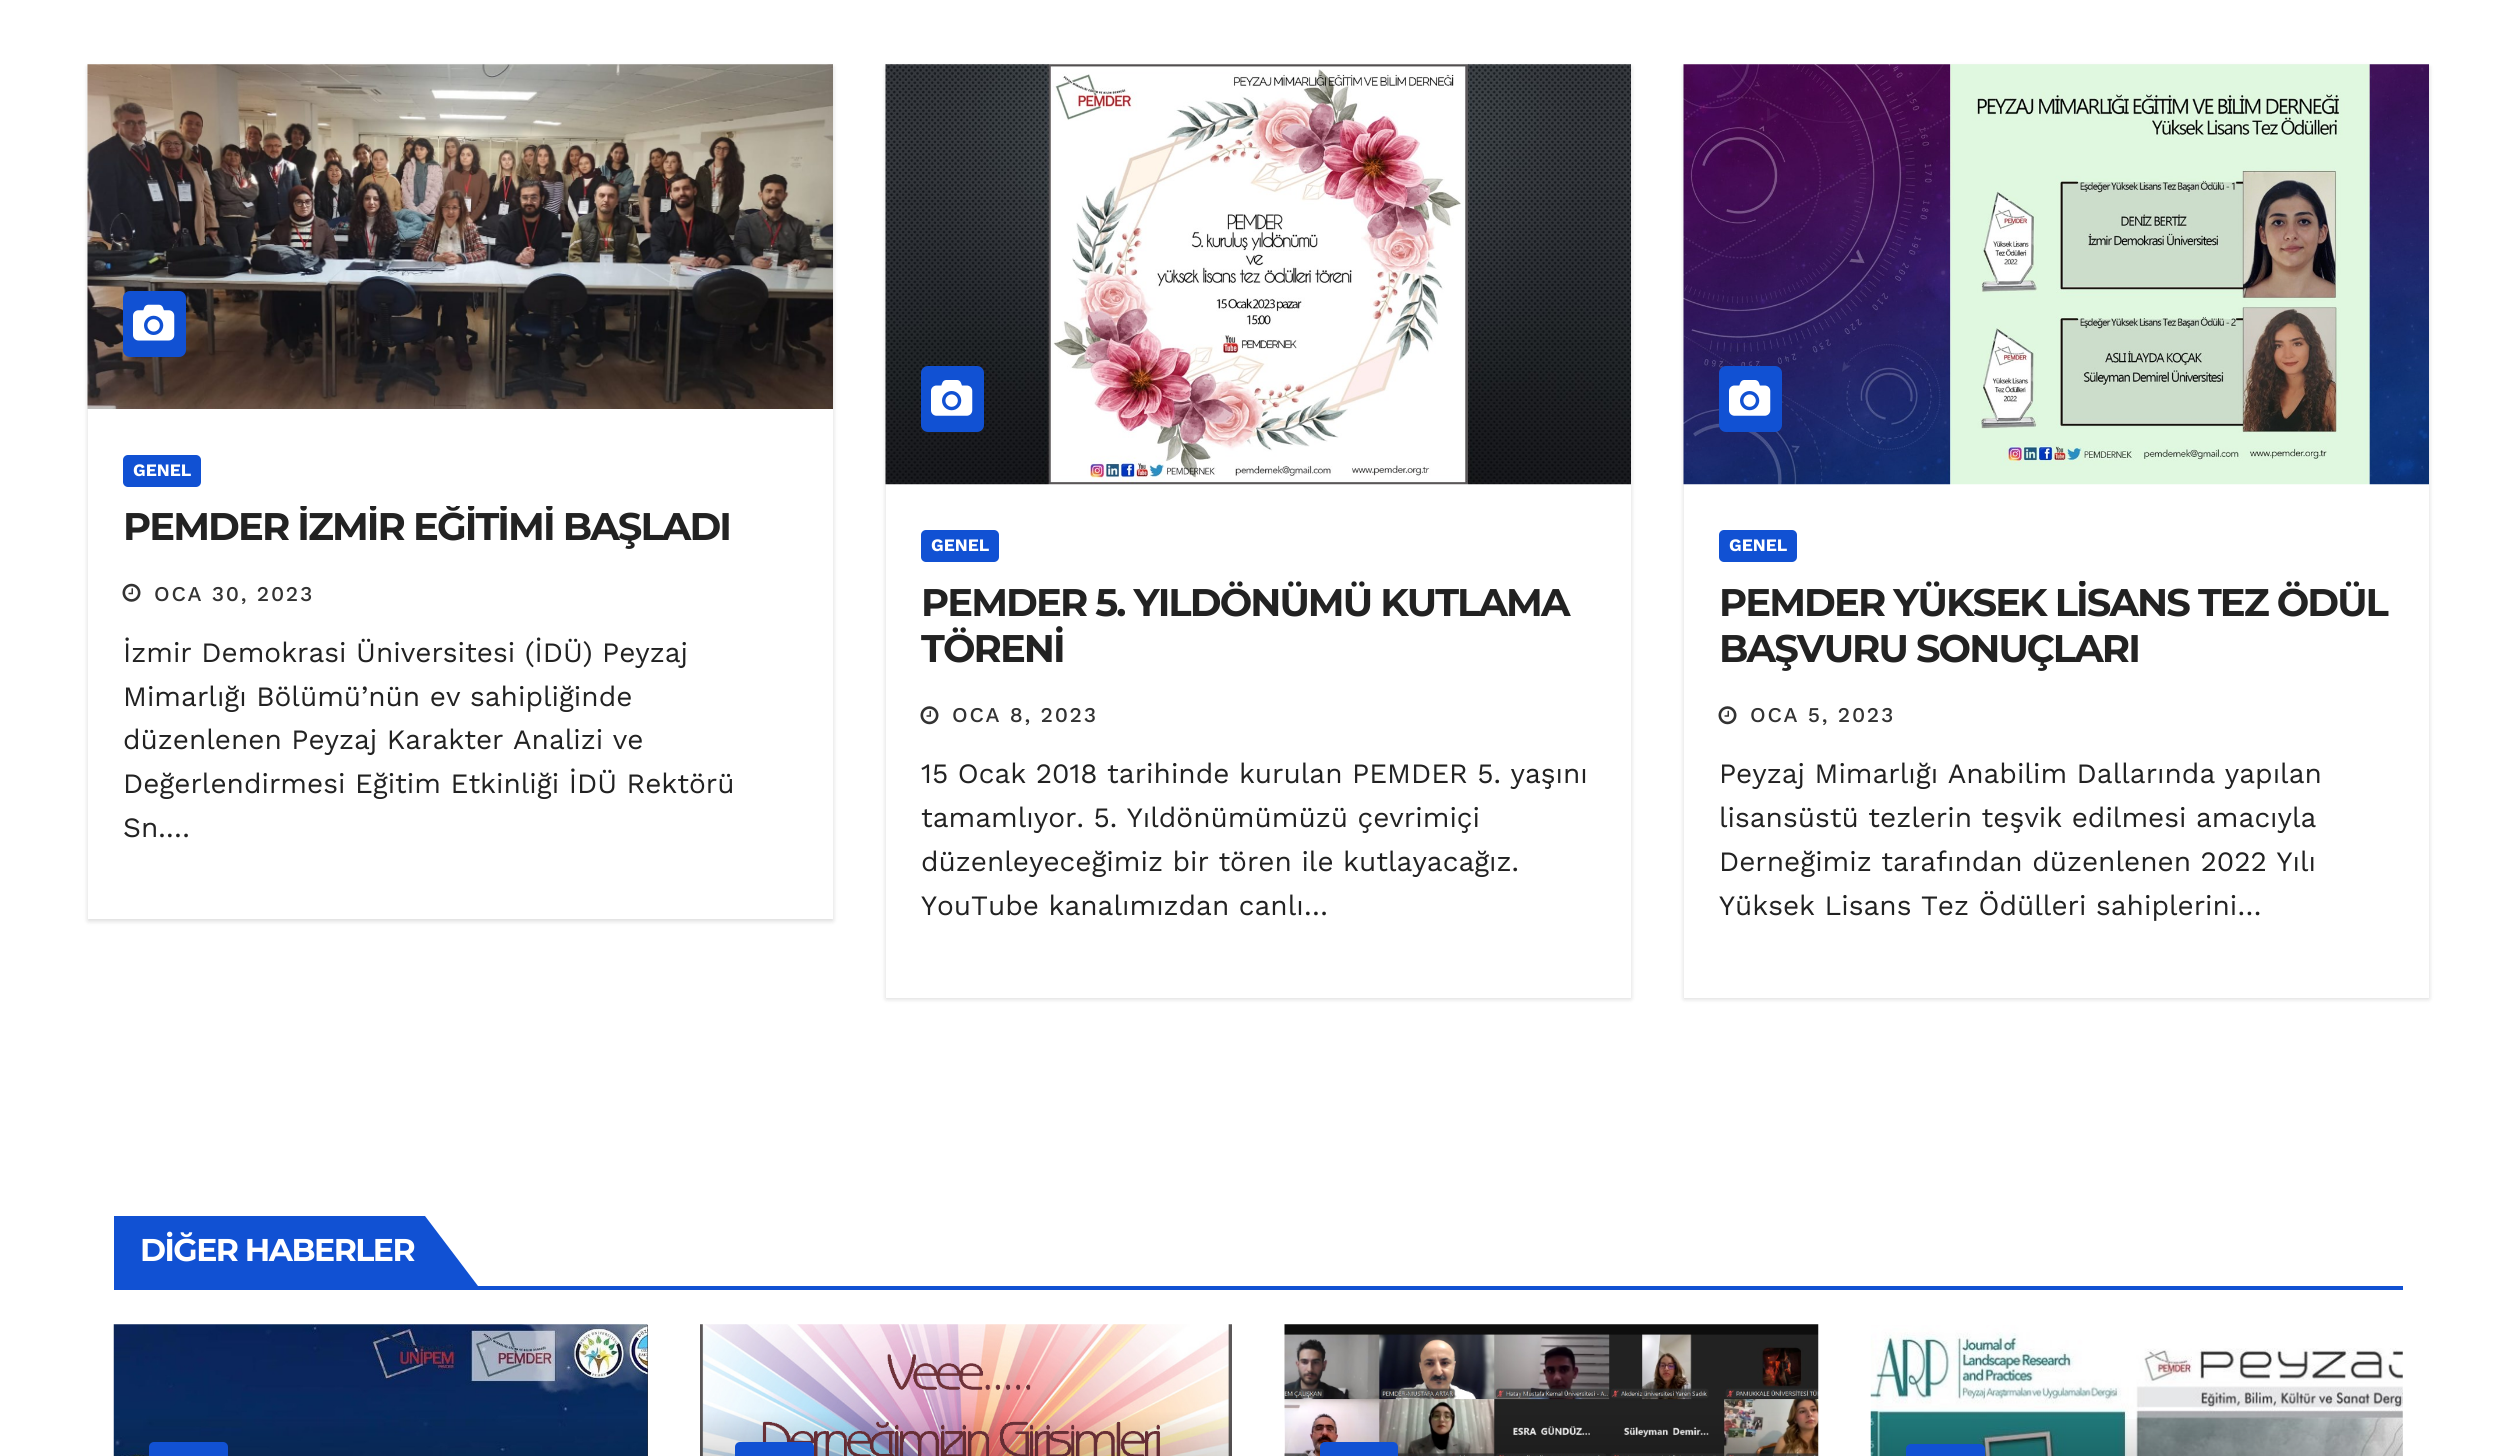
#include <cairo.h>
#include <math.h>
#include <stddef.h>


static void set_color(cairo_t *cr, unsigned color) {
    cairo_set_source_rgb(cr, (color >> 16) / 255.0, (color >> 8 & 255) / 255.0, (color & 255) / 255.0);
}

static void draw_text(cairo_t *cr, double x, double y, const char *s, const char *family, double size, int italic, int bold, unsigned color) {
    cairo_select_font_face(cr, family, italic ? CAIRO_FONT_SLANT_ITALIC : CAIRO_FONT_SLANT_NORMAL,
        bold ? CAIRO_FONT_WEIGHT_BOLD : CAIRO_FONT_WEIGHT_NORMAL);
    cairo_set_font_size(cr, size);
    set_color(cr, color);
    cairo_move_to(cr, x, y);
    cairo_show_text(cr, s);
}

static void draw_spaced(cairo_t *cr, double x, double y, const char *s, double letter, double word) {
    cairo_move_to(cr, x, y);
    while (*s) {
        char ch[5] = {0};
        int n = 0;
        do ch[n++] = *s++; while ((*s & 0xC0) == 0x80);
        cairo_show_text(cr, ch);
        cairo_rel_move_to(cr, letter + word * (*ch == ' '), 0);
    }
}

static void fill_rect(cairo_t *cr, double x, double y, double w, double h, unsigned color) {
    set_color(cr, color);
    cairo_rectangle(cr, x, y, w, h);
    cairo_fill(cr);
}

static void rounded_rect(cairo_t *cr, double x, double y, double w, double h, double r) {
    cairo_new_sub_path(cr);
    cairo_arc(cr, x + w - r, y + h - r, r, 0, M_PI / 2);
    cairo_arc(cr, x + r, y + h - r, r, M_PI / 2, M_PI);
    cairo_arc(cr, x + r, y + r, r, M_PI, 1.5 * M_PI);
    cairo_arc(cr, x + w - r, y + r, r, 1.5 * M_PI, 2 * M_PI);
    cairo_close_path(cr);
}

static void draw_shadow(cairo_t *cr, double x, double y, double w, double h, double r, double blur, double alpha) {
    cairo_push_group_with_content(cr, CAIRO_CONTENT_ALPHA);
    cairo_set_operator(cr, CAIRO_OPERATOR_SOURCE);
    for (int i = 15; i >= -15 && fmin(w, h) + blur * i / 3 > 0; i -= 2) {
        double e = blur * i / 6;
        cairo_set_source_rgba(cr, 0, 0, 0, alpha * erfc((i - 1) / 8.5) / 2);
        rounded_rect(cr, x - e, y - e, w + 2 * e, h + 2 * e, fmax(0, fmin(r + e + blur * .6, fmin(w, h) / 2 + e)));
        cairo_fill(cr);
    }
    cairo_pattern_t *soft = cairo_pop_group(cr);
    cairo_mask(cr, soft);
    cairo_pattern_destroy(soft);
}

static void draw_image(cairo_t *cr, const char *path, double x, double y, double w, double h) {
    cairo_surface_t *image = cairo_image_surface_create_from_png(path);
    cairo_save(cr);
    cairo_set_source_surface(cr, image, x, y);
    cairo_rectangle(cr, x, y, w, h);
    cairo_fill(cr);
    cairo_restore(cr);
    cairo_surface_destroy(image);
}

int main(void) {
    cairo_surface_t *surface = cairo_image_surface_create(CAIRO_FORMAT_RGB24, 2515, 1456);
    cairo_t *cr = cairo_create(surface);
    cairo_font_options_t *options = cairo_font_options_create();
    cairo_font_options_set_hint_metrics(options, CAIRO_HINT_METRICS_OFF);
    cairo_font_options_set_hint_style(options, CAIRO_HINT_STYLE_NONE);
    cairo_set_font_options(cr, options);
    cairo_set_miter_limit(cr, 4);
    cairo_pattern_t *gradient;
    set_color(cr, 0xFFFFFF);
    cairo_paint(cr);
    set_color(cr, 0x000000);
    draw_shadow(cr, 88, 67, 745, 854, 0, 2.5, 0.15);
    fill_rect(cr, 88, 409, 745, 510, 0xFFFFFF);
    draw_image(cr, "assets/img1.png", 87, 64, 746, 345);
    set_color(cr, 0x1151D3);
    rounded_rect(cr, 123, 291, 63, 66, 7);
    cairo_fill(cr);
    draw_image(cr, "assets/img2.png", 133, 304, 42, 37);
    rounded_rect(cr, 123, 455, 78, 32, 5);
    cairo_fill(cr);
    draw_text(cr, 133, 476, "GENEL", "Work Sans", 17.5, 0, 1, 0xFFFFFF);
    cairo_save(cr);
    cairo_rectangle(cr, 123, 506, 675, 45);
    cairo_clip(cr);
    cairo_select_font_face(cr, "Montserrat", CAIRO_FONT_SLANT_NORMAL, CAIRO_FONT_WEIGHT_BOLD);
    cairo_set_font_size(cr, 38.5);
    set_color(cr, 0x222222);
    draw_spaced(cr, 123, 540, "PEMDER İZMİR EĞİTİMİ BAŞLADI", -1.9, 0);
    cairo_restore(cr);
    draw_image(cr, "assets/img3.png", 122, 583, 19, 19);
    cairo_select_font_face(cr, "Work Sans Medium", CAIRO_FONT_SLANT_NORMAL, CAIRO_FONT_WEIGHT_NORMAL);
    cairo_set_font_size(cr, 21);
    set_color(cr, 0x333333);
    draw_spaced(cr, 154, 601, "OCA 30, 2023", 1.75, 0);
    draw_text(cr, 123, 662, "İzmir Demokrasi Üniversitesi (İDÜ) Peyzaj", "Work Sans", 28, 0, 0, 0x222222);
    draw_text(cr, 123, 706, "Mimarlığı Bölümü’nün ev sahipliğinde", "Work Sans", 28, 0, 0, 0x222222);
    draw_text(cr, 123, 749, "düzenlenen Peyzaj Karakter Analizi ve", "Work Sans", 28, 0, 0, 0x222222);
    draw_text(cr, 123, 793, "Değerlendirmesi Eğitim Etkinliği İDÜ Rektörü", "Work Sans", 28, 0, 0, 0x222222);
    draw_text(cr, 123, 837, "Sn.…", "Work Sans", 28, 0, 0, 0x222222);
    set_color(cr, 0x000000);
    draw_shadow(cr, 886, 67, 745, 932, 0, 2.5, 0.15);
    fill_rect(cr, 886, 484, 745, 514, 0xFFFFFF);
    draw_image(cr, "assets/img4.png", 885, 64, 746, 421);
    set_color(cr, 0x1151D3);
    rounded_rect(cr, 921, 366, 63, 66, 7);
    cairo_fill(cr);
    draw_image(cr, "assets/img5.png", 931, 380, 42, 36);
    rounded_rect(cr, 921, 530, 78, 32, 5);
    cairo_fill(cr);
    draw_text(cr, 931, 551, "GENEL", "Work Sans", 17.5, 0, 1, 0xFFFFFF);
    cairo_select_font_face(cr, "Montserrat", CAIRO_FONT_SLANT_NORMAL, CAIRO_FONT_WEIGHT_BOLD);
    cairo_set_font_size(cr, 38.5);
    set_color(cr, 0x222222);
    draw_spaced(cr, 921, 616, "PEMDER 5. YILDÖNÜMÜ KUTLAMA", -1.9, 0);
    cairo_save(cr);
    cairo_rectangle(cr, 921, 581, 675, 93);
    cairo_clip(cr);
    draw_spaced(cr, 921, 662, "TÖRENİ", -1.9, 0);
    cairo_restore(cr);
    draw_image(cr, "assets/img6.png", 920, 706, 19, 19);
    cairo_select_font_face(cr, "Work Sans Medium", CAIRO_FONT_SLANT_NORMAL, CAIRO_FONT_WEIGHT_NORMAL);
    cairo_set_font_size(cr, 21);
    set_color(cr, 0x333333);
    draw_spaced(cr, 952, 722, "OCA 8, 2023", 1.75, 0);
    draw_text(cr, 921, 783, "15 Ocak 2018 tarihinde kurulan PEMDER 5. yaşını", "Work Sans", 28, 0, 0, 0x222222);
    draw_text(cr, 921, 827, "tamamlıyor. 5. Yıldönümümüzü çevrimiçi", "Work Sans", 28, 0, 0, 0x222222);
    draw_text(cr, 921, 871, "düzenleyeceğimiz bir tören ile kutlayacağız.", "Work Sans", 28, 0, 0, 0x222222);
    draw_text(cr, 921, 915, "YouTube kanalımızdan canlı…", "Work Sans", 28, 0, 0, 0x222222);
    set_color(cr, 0x000000);
    draw_shadow(cr, 1684, 67, 745, 932, 0, 2.5, 0.15);
    fill_rect(cr, 1684, 484, 745, 514, 0xFFFFFF);
    draw_image(cr, "assets/img7.png", 1683, 64, 746, 421);
    set_color(cr, 0x1151D3);
    rounded_rect(cr, 1719, 366, 63, 66, 7);
    cairo_fill(cr);
    draw_image(cr, "assets/img8.png", 1729, 380, 42, 36);
    rounded_rect(cr, 1719, 530, 78, 32, 5);
    cairo_fill(cr);
    draw_text(cr, 1729, 551, "GENEL", "Work Sans", 17.5, 0, 1, 0xFFFFFF);
    cairo_save(cr);
    cairo_rectangle(cr, 1719, 581, 675, 93);
    cairo_clip(cr);
    cairo_select_font_face(cr, "Montserrat", CAIRO_FONT_SLANT_NORMAL, CAIRO_FONT_WEIGHT_BOLD);
    cairo_set_font_size(cr, 38.5);
    set_color(cr, 0x222222);
    draw_spaced(cr, 1719, 616, "PEMDER YÜKSEK LİSANS TEZ ÖDÜL", -1.9, 0);
    cairo_restore(cr);
    cairo_select_font_face(cr, "Montserrat", CAIRO_FONT_SLANT_NORMAL, CAIRO_FONT_WEIGHT_BOLD);
    cairo_set_font_size(cr, 38.5);
    set_color(cr, 0x222222);
    draw_spaced(cr, 1719, 662, "BAŞVURU SONUÇLARI", -1.9, 0);
    draw_image(cr, "assets/img6.png", 1718, 706, 19, 19);
    cairo_select_font_face(cr, "Work Sans Medium", CAIRO_FONT_SLANT_NORMAL, CAIRO_FONT_WEIGHT_NORMAL);
    cairo_set_font_size(cr, 21);
    set_color(cr, 0x333333);
    draw_spaced(cr, 1750, 722, "OCA 5, 2023", 1.75, 0);
    draw_text(cr, 1719, 783, "Peyzaj Mimarlığı Anabilim Dallarında yapılan", "Work Sans", 28, 0, 0, 0x222222);
    draw_text(cr, 1719, 827, "lisansüstü tezlerin teşvik edilmesi amacıyla", "Work Sans", 28, 0, 0, 0x222222);
    draw_text(cr, 1719, 871, "Derneğimiz tarafından düzenlenen 2022 Yılı", "Work Sans", 28, 0, 0, 0x222222);
    draw_text(cr, 1719, 915, "Yüksek Lisans Tez Ödülleri sahiplerini…", "Work Sans", 28, 0, 0, 0x222222);
    fill_rect(cr, 114, 1286, 2289, 4, 0x1151D3);
    fill_rect(cr, 114, 1216, 311, 70, 0x1151D3);
    cairo_select_font_face(cr, "Montserrat", CAIRO_FONT_SLANT_NORMAL, CAIRO_FONT_WEIGHT_BOLD);
    cairo_set_font_size(cr, 31.5);
    set_color(cr, 0xFFFFFF);
    draw_spaced(cr, 140, 1261, "DİĞER HABERLER", -1.5, 0);
    set_color(cr, 0x1151D3);
    cairo_new_path(cr);
    cairo_move_to(cr, 425, 1286);
    cairo_line_to(cr, 425, 1216);
    cairo_line_to(cr, 478, 1286);
    cairo_close_path(cr);
    cairo_fill(cr);
    fill_rect(cr, 647, 1325, 1, 131, 0x333333);
    draw_image(cr, "assets/img9.png", 113, 1324, 535, 132);
    gradient = cairo_pattern_create_linear(381, 1411, 381, 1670);
    cairo_pattern_add_color_stop_rgba(gradient, 0, 0, 0, 0, 0);
    cairo_pattern_add_color_stop_rgba(gradient, 0.5, 0, 0, 0, 0.4);
    cairo_pattern_add_color_stop_rgba(gradient, 1, 0, 0, 0, 0.7);
    cairo_set_source(cr, gradient);
    cairo_pattern_destroy(gradient);
    cairo_rectangle(cr, 114, 1419, 534, 37);
    cairo_fill(cr);
    set_color(cr, 0x1151D3);
    rounded_rect(cr, 149, 1442, 79, 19, 5);
    cairo_fill(cr);
    draw_image(cr, "assets/img10.png", 700, 1324, 532, 132);
    rounded_rect(cr, 735, 1442, 79, 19, 5);
    cairo_fill(cr);
    draw_image(cr, "assets/img11.png", 1284, 1324, 535, 132);
    rounded_rect(cr, 1320, 1442, 78, 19, 5);
    cairo_fill(cr);
    draw_image(cr, "assets/img12.png", 1870, 1325, 533, 131);
    gradient = cairo_pattern_create_linear(2137, 1412, 2137, 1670);
    cairo_pattern_add_color_stop_rgba(gradient, 0, 0, 0, 0, 0);
    cairo_pattern_add_color_stop_rgba(gradient, 0.5, 0, 0, 0, 0.4);
    cairo_pattern_add_color_stop_rgba(gradient, 1, 0, 0, 0, 0.7);
    cairo_set_source(cr, gradient);
    cairo_pattern_destroy(gradient);
    cairo_rectangle(cr, 1871, 1419, 532, 37);
    cairo_fill(cr);
    set_color(cr, 0x1151D3);
    rounded_rect(cr, 1906, 1444, 79, 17, 5);
    cairo_fill(cr);
    cairo_surface_write_to_png(surface, "output.png");
    cairo_font_options_destroy(options);
    cairo_destroy(cr);
    cairo_surface_destroy(surface);
    return 0;
}
